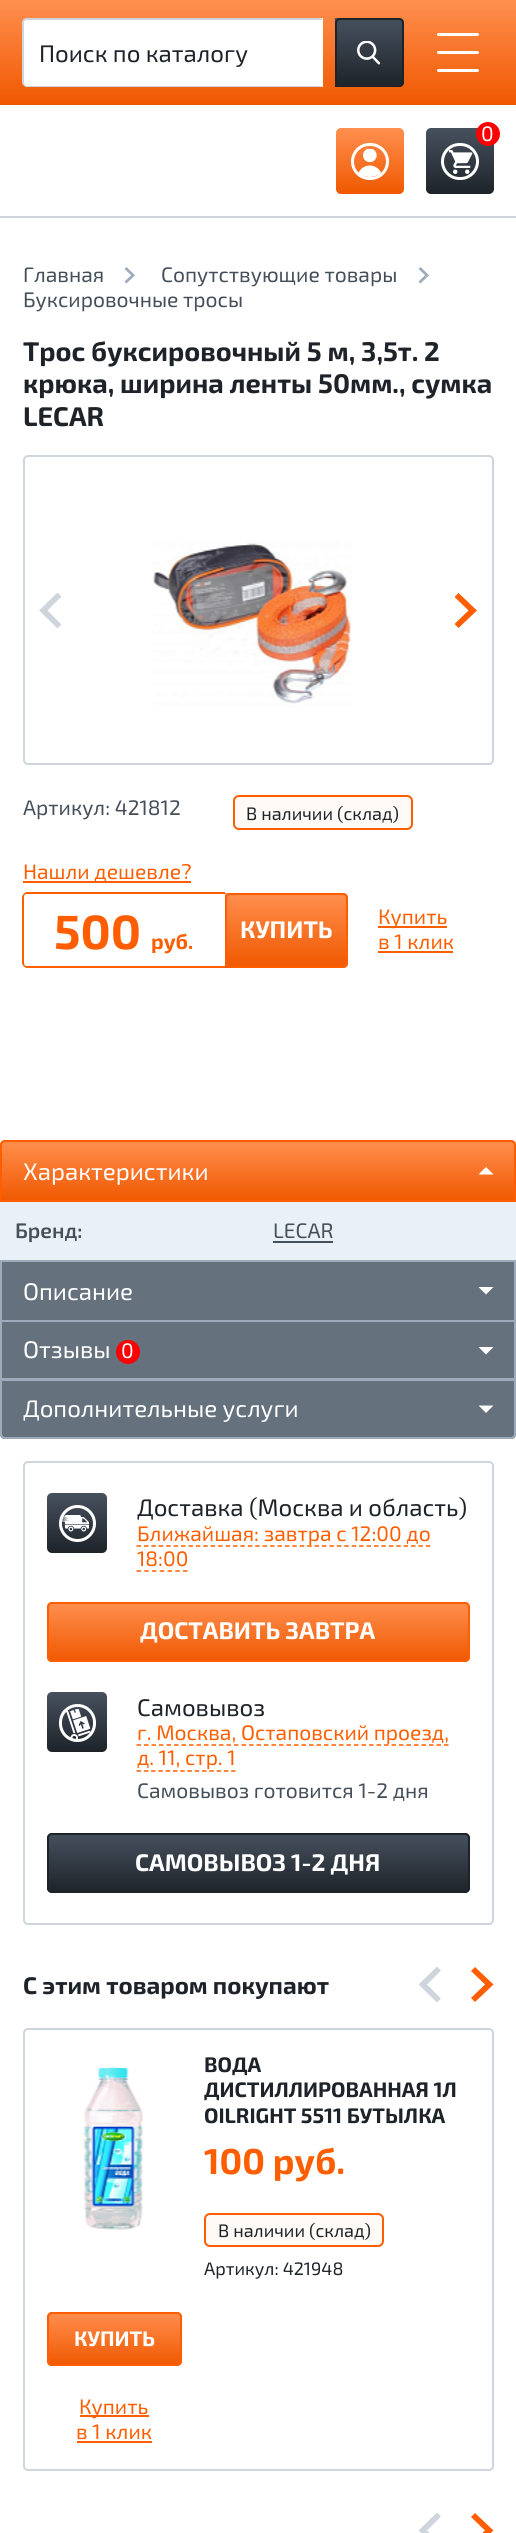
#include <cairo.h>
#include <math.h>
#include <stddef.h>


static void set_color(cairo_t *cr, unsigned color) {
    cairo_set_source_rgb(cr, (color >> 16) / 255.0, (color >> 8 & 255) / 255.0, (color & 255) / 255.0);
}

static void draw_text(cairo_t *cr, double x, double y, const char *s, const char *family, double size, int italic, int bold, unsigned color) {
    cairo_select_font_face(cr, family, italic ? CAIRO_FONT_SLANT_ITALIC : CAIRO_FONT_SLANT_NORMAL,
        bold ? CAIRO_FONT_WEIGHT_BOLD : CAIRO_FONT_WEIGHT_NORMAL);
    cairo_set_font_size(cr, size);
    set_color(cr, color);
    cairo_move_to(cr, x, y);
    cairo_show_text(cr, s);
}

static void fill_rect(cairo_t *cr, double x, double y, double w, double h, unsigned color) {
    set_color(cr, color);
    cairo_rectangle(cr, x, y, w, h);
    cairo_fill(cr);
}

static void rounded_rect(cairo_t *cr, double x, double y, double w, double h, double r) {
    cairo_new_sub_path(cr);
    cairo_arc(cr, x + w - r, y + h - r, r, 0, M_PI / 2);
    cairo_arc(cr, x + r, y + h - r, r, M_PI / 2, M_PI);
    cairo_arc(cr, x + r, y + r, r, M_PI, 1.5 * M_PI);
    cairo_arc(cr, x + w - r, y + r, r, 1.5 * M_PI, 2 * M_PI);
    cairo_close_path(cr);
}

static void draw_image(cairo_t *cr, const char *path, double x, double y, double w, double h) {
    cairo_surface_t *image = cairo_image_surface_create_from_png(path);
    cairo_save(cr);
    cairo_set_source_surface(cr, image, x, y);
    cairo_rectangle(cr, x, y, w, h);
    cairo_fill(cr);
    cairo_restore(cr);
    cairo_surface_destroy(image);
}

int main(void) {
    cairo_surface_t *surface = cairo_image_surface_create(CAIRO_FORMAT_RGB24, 516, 2533);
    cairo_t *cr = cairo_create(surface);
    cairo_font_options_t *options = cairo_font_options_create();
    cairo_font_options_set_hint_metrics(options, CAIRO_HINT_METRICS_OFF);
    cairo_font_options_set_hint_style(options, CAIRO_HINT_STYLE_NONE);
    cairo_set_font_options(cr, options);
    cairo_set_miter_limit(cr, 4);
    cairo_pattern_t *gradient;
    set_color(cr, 0xFFFFFF);
    cairo_paint(cr);
    gradient = cairo_pattern_create_linear(258, 0, 258, 105);
    cairo_pattern_add_color_stop_rgba(gradient, 0, 1, 0.561, 0.31, 1);
    cairo_pattern_add_color_stop_rgba(gradient, 1, 0.941, 0.345, 0, 1);
    cairo_set_source(cr, gradient);
    cairo_pattern_destroy(gradient);
    cairo_rectangle(cr, 0, 0, 516, 105);
    cairo_fill(cr);
    set_color(cr, 0xFFFFFF);
    cairo_new_path(cr);
    cairo_move_to(cr, 28, 18);
    cairo_line_to(cr, 323, 18);
    cairo_line_to(cr, 323, 87);
    cairo_line_to(cr, 28, 87);
    cairo_curve_to(cr, 25, 87, 23, 85, 23, 82);
    cairo_line_to(cr, 23, 23);
    cairo_curve_to(cr, 23, 20, 25, 18, 28, 18);
    cairo_close_path(cr);
    cairo_fill(cr);
    set_color(cr, 0xCED5DD);
    cairo_set_fill_rule(cr, CAIRO_FILL_RULE_EVEN_ODD);
    cairo_new_path(cr);
    cairo_move_to(cr, 27, 18);
    cairo_line_to(cr, 322, 18);
    cairo_line_to(cr, 322, 87);
    cairo_line_to(cr, 27, 87);
    cairo_curve_to(cr, 25, 87, 22, 85, 22, 82);
    cairo_line_to(cr, 22, 22);
    cairo_curve_to(cr, 22, 20, 25, 18, 27, 18);
    cairo_close_path(cr);
    cairo_move_to(cr, 27, 20);
    cairo_line_to(cr, 322, 20);
    cairo_line_to(cr, 322, 86);
    cairo_line_to(cr, 27, 86);
    cairo_curve_to(cr, 25, 86, 24, 84, 24, 82);
    cairo_line_to(cr, 24, 22);
    cairo_curve_to(cr, 24, 21, 25, 20, 27, 20);
    cairo_close_path(cr);
    cairo_fill(cr);
    draw_text(cr, 39, 62, "Поиск по каталогу", "Exo 2", 24, 0, 0, 0x1D2329);
    gradient = cairo_pattern_create_linear(369, 18, 369, 87);
    cairo_pattern_add_color_stop_rgba(gradient, 0, 0.278, 0.318, 0.369, 1);
    cairo_pattern_add_color_stop_rgba(gradient, 1, 0.114, 0.137, 0.161, 1);
    cairo_set_source(cr, gradient);
    cairo_pattern_destroy(gradient);
    cairo_new_path(cr);
    cairo_move_to(cr, 335, 18);
    cairo_line_to(cr, 399, 18);
    cairo_curve_to(cr, 402, 18, 404, 20, 404, 23);
    cairo_line_to(cr, 404, 82);
    cairo_curve_to(cr, 404, 85, 402, 87, 399, 87);
    cairo_line_to(cr, 335, 87);
    cairo_close_path(cr);
    cairo_fill(cr);
    rounded_rect(cr, 336, 19, 67, 67, 4);
    set_color(cr, 0x1D2329);
    cairo_stroke(cr);
    draw_image(cr, "assets/img1.png", 357, 41, 24, 24);
    set_color(cr, 0xFFFFFF);
    rounded_rect(cr, 437, 33, 42, 3, 1.5);
    cairo_fill(cr);
    rounded_rect(cr, 437, 51, 42, 3, 1.5);
    cairo_fill(cr);
    rounded_rect(cr, 437, 69, 42, 3, 1.5);
    cairo_fill(cr);
    fill_rect(cr, 0, 216, 516, 2, 0xCED5DD);
    gradient = cairo_pattern_create_linear(370, 128, 370, 194);
    cairo_pattern_add_color_stop_rgba(gradient, 0, 1, 0.561, 0.31, 1);
    cairo_pattern_add_color_stop_rgba(gradient, 1, 0.941, 0.345, 0, 1);
    cairo_set_source(cr, gradient);
    cairo_pattern_destroy(gradient);
    rounded_rect(cr, 336, 128, 68, 66, 5);
    cairo_fill(cr);
    rounded_rect(cr, 352.5, 144.5, 35, 34, 17);
    set_color(cr, 0xFFFFFF);
    cairo_set_line_width(cr, 3);
    cairo_stroke(cr);
    draw_image(cr, "assets/img2.png", 358, 149, 23, 28);
    gradient = cairo_pattern_create_linear(460, 128, 460, 194);
    cairo_pattern_add_color_stop_rgba(gradient, 0, 0.278, 0.318, 0.369, 1);
    cairo_pattern_add_color_stop_rgba(gradient, 1, 0.114, 0.137, 0.161, 1);
    cairo_set_source(cr, gradient);
    cairo_pattern_destroy(gradient);
    rounded_rect(cr, 426, 128, 68, 66, 5);
    cairo_fill(cr);
    rounded_rect(cr, 442.5, 144.5, 35, 34, 17);
    set_color(cr, 0xFFFFFF);
    cairo_stroke(cr);
    set_color(cr, 0xFF0000);
    cairo_arc(cr, 488, 134, 12, 0, 2 * M_PI);
    cairo_fill(cr);
    draw_text(cr, 481, 141, "0", "Exo 2", 21, 0, 0, 0xFFFFFF);
    draw_image(cr, "assets/img3.png", 449, 150, 24, 24);
    draw_text(cr, 23, 282, "Главная", "Exo 2", 21, 0, 0, 0x454F59);
    draw_image(cr, "assets/img4.png", 124, 267, 11, 17);
    draw_text(cr, 161, 282, "Сопутствующие товары", "Exo 2", 21, 0, 0, 0x454F59);
    draw_image(cr, "assets/img4.png", 418, 267, 11, 17);
    draw_text(cr, 23, 307, "Буксировочные тросы", "Exo 2", 21, 0, 0, 0x454F59);
    draw_text(cr, 23, 361, "Трос буксировочный 5 м, 3,5т. 2", "Exo 2", 27, 0, 1, 0x1D2329);
    draw_text(cr, 23, 393, "крюка, ширина ленты 50мм., сумка", "Exo 2", 27, 0, 1, 0x1D2329);
    draw_text(cr, 23, 426, "LECAR", "Exo 2", 27, 0, 1, 0x1D2329);
    rounded_rect(cr, 24, 456, 469, 308, 4);
    set_color(cr, 0xCED5DD);
    cairo_set_line_width(cr, 2);
    cairo_stroke(cr);
    cairo_set_fill_rule(cr, CAIRO_FILL_RULE_WINDING);
    cairo_new_path(cr);
    cairo_move_to(cr, 57.5, 592.5);
    cairo_line_to(cr, 61.5, 596.5);
    cairo_line_to(cr, 47.5, 610.5);
    cairo_line_to(cr, 61.5, 624.5);
    cairo_line_to(cr, 57.5, 628.5);
    cairo_line_to(cr, 39, 610.5);
    cairo_close_path(cr);
    cairo_fill(cr);
    draw_image(cr, "assets/img5.png", 153, 540, 199, 167);
    cairo_save(cr);
    cairo_rectangle(cr, 455, 593, 22, 36);
    cairo_clip(cr);
    set_color(cr, 0xFF5E00);
    cairo_new_path(cr);
    cairo_move_to(cr, 458.5, 593);
    cairo_line_to(cr, 454.5, 597);
    cairo_line_to(cr, 468.5, 610.5);
    cairo_line_to(cr, 454.5, 624);
    cairo_line_to(cr, 458.5, 628);
    cairo_line_to(cr, 477, 610.5);
    cairo_close_path(cr);
    cairo_fill(cr);
    cairo_restore(cr);
    draw_text(cr, 23, 815, "Артикул: 421812", "Exo 2", 21, 0, 0, 0x454F59);
    set_color(cr, 0xFFFAF6);
    rounded_rect(cr, 234, 796, 178, 33, 5);
    cairo_fill_preserve(cr);
    set_color(cr, 0xFF5E00);
    cairo_stroke(cr);
    draw_text(cr, 246, 820, "В наличии (склад)", "Exo 2", 18, 0, 0, 0x1D2329);
    fill_rect(cr, 23, 881, 168, 2, 0xFF5E00);
    draw_text(cr, 23, 879, "Нашли дешевле?", "Exo 2", 21, 0, 0, 0xFF5E00);
    cairo_set_fill_rule(cr, CAIRO_FILL_RULE_EVEN_ODD);
    cairo_new_path(cr);
    cairo_move_to(cr, 27, 892);
    cairo_line_to(cr, 225, 892);
    cairo_line_to(cr, 225, 968);
    cairo_line_to(cr, 27, 968);
    cairo_curve_to(cr, 25, 968, 22, 965, 22, 963);
    cairo_line_to(cr, 22, 897);
    cairo_curve_to(cr, 22, 895, 25, 892, 27, 892);
    cairo_close_path(cr);
    cairo_move_to(cr, 27, 894);
    cairo_line_to(cr, 225, 894);
    cairo_line_to(cr, 225, 966);
    cairo_line_to(cr, 27, 966);
    cairo_curve_to(cr, 25, 966, 24, 965, 24, 963);
    cairo_line_to(cr, 24, 897);
    cairo_curve_to(cr, 24, 895, 25, 894, 27, 894);
    cairo_close_path(cr);
    cairo_fill(cr);
    draw_text(cr, 54, 949, "500", "Exo 2", 48, 0, 1, 0xFF5E00);
    draw_text(cr, 151, 949, "руб.", "Exo 2", 21, 0, 1, 0xFF5E00);
    gradient = cairo_pattern_create_linear(287, 893, 287, 968);
    cairo_pattern_add_color_stop_rgba(gradient, 0, 1, 0.561, 0.31, 1);
    cairo_pattern_add_color_stop_rgba(gradient, 1, 0.941, 0.345, 0, 1);
    cairo_set_source(cr, gradient);
    cairo_pattern_destroy(gradient);
    cairo_new_path(cr);
    cairo_move_to(cr, 225, 893);
    cairo_line_to(cr, 343, 893);
    cairo_curve_to(cr, 346, 893, 348, 895, 348, 898);
    cairo_line_to(cr, 348, 963);
    cairo_curve_to(cr, 348, 966, 346, 968, 343, 968);
    cairo_line_to(cr, 225, 968);
    cairo_close_path(cr);
    cairo_fill(cr);
    rounded_rect(cr, 226, 894, 121, 73, 4);
    set_color(cr, 0xFF5E00);
    cairo_stroke(cr);
    draw_text(cr, 240, 938, "КУПИТЬ", "Exo 2", 24, 0, 1, 0xFFFFFF);
    fill_rect(cr, 378, 926, 69, 2, 0xFF5E00);
    draw_text(cr, 378, 924, "Купить", "Exo 2", 21, 0, 0, 0xFF5E00);
    draw_text(cr, 378, 949, "в 1 клик", "Exo 2", 21, 0, 0, 0xFF5E00);
    fill_rect(cr, 378, 951, 75, 2, 0xFF5E00);
    gradient = cairo_pattern_create_linear(258, 1140, 258, 1202);
    cairo_pattern_add_color_stop_rgba(gradient, 0, 1, 0.561, 0.31, 1);
    cairo_pattern_add_color_stop_rgba(gradient, 1, 0.941, 0.345, 0, 1);
    cairo_set_source(cr, gradient);
    cairo_pattern_destroy(gradient);
    cairo_new_path(cr);
    cairo_move_to(cr, 5, 1140);
    cairo_line_to(cr, 511, 1140);
    cairo_curve_to(cr, 514, 1140, 516, 1142, 516, 1145);
    cairo_line_to(cr, 516, 1202);
    cairo_line_to(cr, 0, 1202);
    cairo_line_to(cr, 0, 1145);
    cairo_curve_to(cr, 0, 1142, 2, 1140, 5, 1140);
    cairo_close_path(cr);
    cairo_fill(cr);
    cairo_new_path(cr);
    cairo_move_to(cr, 5, 1141);
    cairo_line_to(cr, 511, 1141);
    cairo_curve_to(cr, 513, 1141, 515, 1143, 515, 1145);
    cairo_line_to(cr, 515, 1201);
    cairo_line_to(cr, 1, 1201);
    cairo_line_to(cr, 1, 1145);
    cairo_curve_to(cr, 1, 1143, 3, 1141, 5, 1141);
    cairo_close_path(cr);
    set_color(cr, 0xFF5E00);
    cairo_stroke(cr);
    draw_text(cr, 23, 1180, "Характеристики", "Exo 2", 24, 0, 0, 0xFFFFFF);
    cairo_set_fill_rule(cr, CAIRO_FILL_RULE_WINDING);
    cairo_new_path(cr);
    cairo_move_to(cr, 493.5, 1174.5);
    cairo_line_to(cr, 478.5, 1174.5);
    cairo_line_to(cr, 486, 1167);
    cairo_close_path(cr);
    cairo_fill(cr);
    fill_rect(cr, 0, 1202, 516, 58, 0xEAF0F7);
    draw_text(cr, 15, 1238, "Бренд:", "Exo 2 SemiBold", 21, 0, 0, 0x454F59);
    draw_text(cr, 273, 1238, "LECAR", "Exo 2", 21, 0, 0, 0x454F59);
    fill_rect(cr, 273, 1241, 60, 2, 0x454F59);
    fill_rect(cr, 2, 1262, 512, 58, 0x65717D);
    cairo_rectangle(cr, 1, 1261, 514, 60);
    set_color(cr, 0x9DABBB);
    cairo_stroke(cr);
    draw_text(cr, 23, 1300, "Описание", "Exo 2", 24, 0, 0, 0xFFFFFF);
    cairo_new_path(cr);
    cairo_move_to(cr, 478.5, 1287);
    cairo_line_to(cr, 493.5, 1287);
    cairo_line_to(cr, 486, 1294.5);
    cairo_close_path(cr);
    cairo_fill(cr);
    fill_rect(cr, 2, 1322, 512, 56, 0x65717D);
    set_color(cr, 0xFF0000);
    cairo_arc(cr, 128, 1352, 12, 0, 2 * M_PI);
    cairo_fill(cr);
    cairo_rectangle(cr, 1, 1321, 514, 58);
    set_color(cr, 0x9DABBB);
    cairo_stroke(cr);
    draw_text(cr, 23, 1358, "Отзывы", "Exo 2", 24, 0, 0, 0xFFFFFF);
    draw_text(cr, 121, 1358, "0", "Exo 2", 21, 0, 0, 0xFFFFFF);
    cairo_new_path(cr);
    cairo_move_to(cr, 478.5, 1347);
    cairo_line_to(cr, 493.5, 1347);
    cairo_line_to(cr, 486, 1354.5);
    cairo_close_path(cr);
    cairo_fill(cr);
    set_color(cr, 0x65717D);
    cairo_new_path(cr);
    cairo_move_to(cr, 0, 1379);
    cairo_line_to(cr, 516, 1379);
    cairo_line_to(cr, 516, 1434);
    cairo_curve_to(cr, 516, 1437, 514, 1439, 511, 1439);
    cairo_line_to(cr, 5, 1439);
    cairo_curve_to(cr, 2, 1439, 0, 1437, 0, 1434);
    cairo_close_path(cr);
    cairo_fill(cr);
    cairo_new_path(cr);
    cairo_move_to(cr, 1, 1380);
    cairo_line_to(cr, 515, 1380);
    cairo_line_to(cr, 515, 1434);
    cairo_curve_to(cr, 515, 1436, 513, 1438, 511, 1438);
    cairo_line_to(cr, 5, 1438);
    cairo_curve_to(cr, 3, 1438, 1, 1436, 1, 1434);
    cairo_close_path(cr);
    set_color(cr, 0x9DABBB);
    cairo_stroke(cr);
    draw_text(cr, 23, 1417, "Дополнительные услуги", "Exo 2", 24, 0, 0, 0xFFFFFF);
    cairo_new_path(cr);
    cairo_move_to(cr, 478.5, 1405.5);
    cairo_line_to(cr, 493.5, 1405.5);
    cairo_line_to(cr, 486, 1413);
    cairo_close_path(cr);
    cairo_fill(cr);
    rounded_rect(cr, 24, 1462, 469, 462, 4);
    set_color(cr, 0xCED5DD);
    cairo_stroke(cr);
    gradient = cairo_pattern_create_linear(77, 1493, 77, 1553);
    cairo_pattern_add_color_stop_rgba(gradient, 0, 0.278, 0.318, 0.369, 1);
    cairo_pattern_add_color_stop_rgba(gradient, 1, 0.114, 0.137, 0.161, 1);
    cairo_set_source(cr, gradient);
    cairo_pattern_destroy(gradient);
    rounded_rect(cr, 47, 1493, 60, 60, 5);
    cairo_fill(cr);
    cairo_arc(cr, 77.5, 1523.5, 17, 0, 2 * M_PI);
    set_color(cr, 0xFFFFFF);
    cairo_set_line_width(cr, 3);
    cairo_stroke(cr);
    draw_image(cr, "assets/img6.png", 60, 1515, 29, 17);
    draw_text(cr, 137, 1516, "Доставка (Москва и область)", "Exo 2", 24, 0, 0, 0x1D2329);
    cairo_new_path(cr);
    cairo_move_to(cr, 136.5, 1546);
    cairo_line_to(cr, 430.5, 1546);
    set_color(cr, 0xFF5E00);
    cairo_set_line_width(cr, 1.5);
    cairo_set_dash(cr, (double[]){4.5, 2.92}, 2, 0);
    cairo_stroke(cr);
    draw_text(cr, 137, 1541, "Ближайшая: завтра с 12:00 до", "Exo 2", 21, 0, 0, 0xFF5E00);
    draw_text(cr, 137, 1566, "18:00", "Exo 2", 21, 0, 0, 0xFF5E00);
    cairo_new_path(cr);
    cairo_move_to(cr, 136.5, 1571);
    cairo_line_to(cr, 187.5, 1571);
    cairo_set_dash(cr, (double[]){4.5, 3.25}, 2, 0);
    cairo_stroke(cr);
    gradient = cairo_pattern_create_linear(258, 1602, 258, 1662);
    cairo_pattern_add_color_stop_rgba(gradient, 0, 1, 0.561, 0.31, 1);
    cairo_pattern_add_color_stop_rgba(gradient, 1, 0.941, 0.345, 0, 1);
    cairo_set_source(cr, gradient);
    cairo_pattern_destroy(gradient);
    rounded_rect(cr, 47, 1602, 423, 60, 5);
    cairo_fill(cr);
    rounded_rect(cr, 48, 1603, 421, 58, 4);
    set_color(cr, 0xFF5E00);
    cairo_set_line_width(cr, 2);
    cairo_set_dash(cr, NULL, 0, 0);
    cairo_stroke(cr);
    draw_text(cr, 140, 1639, "ДОСТАВИТЬ ЗАВТРА", "Exo 2", 24, 0, 1, 0xFFFFFF);
    gradient = cairo_pattern_create_linear(77, 1692, 77, 1752);
    cairo_pattern_add_color_stop_rgba(gradient, 0, 0.278, 0.318, 0.369, 1);
    cairo_pattern_add_color_stop_rgba(gradient, 1, 0.114, 0.137, 0.161, 1);
    cairo_set_source(cr, gradient);
    cairo_pattern_destroy(gradient);
    rounded_rect(cr, 47, 1692, 60, 60, 5);
    cairo_fill(cr);
    rounded_rect(cr, 60.5, 1705.5, 34, 35, 17);
    set_color(cr, 0xFFFFFF);
    cairo_set_line_width(cr, 3);
    cairo_stroke(cr);
    draw_image(cr, "assets/img7.png", 62, 1709, 29, 33);
    draw_text(cr, 137, 1716, "Самовывоз", "Exo 2", 24, 0, 0, 0x1D2329);
    cairo_new_path(cr);
    cairo_move_to(cr, 136.5, 1745);
    cairo_line_to(cr, 448.5, 1745);
    set_color(cr, 0xFF5E00);
    cairo_set_line_width(cr, 1.5);
    cairo_set_dash(cr, (double[]){4.5, 3}, 2, 0);
    cairo_stroke(cr);
    draw_text(cr, 137, 1740, "г. Москва, Остаповский проезд,", "Exo 2", 21, 0, 0, 0xFF5E00);
    draw_text(cr, 137, 1765, "д. 11, стр. 1", "Exo 2", 21, 0, 0, 0xFF5E00);
    cairo_new_path(cr);
    cairo_move_to(cr, 136.5, 1771);
    cairo_line_to(cr, 235.5, 1771);
    cairo_set_dash(cr, (double[]){4.5, 2.78}, 2, 0);
    cairo_stroke(cr);
    draw_text(cr, 137, 1798, "Самовывоз готовится 1-2 дня", "Exo 2", 21, 0, 0, 0x454F59);
    gradient = cairo_pattern_create_linear(258, 1833, 258, 1893);
    cairo_pattern_add_color_stop_rgba(gradient, 0, 0.278, 0.318, 0.369, 1);
    cairo_pattern_add_color_stop_rgba(gradient, 1, 0.114, 0.137, 0.161, 1);
    cairo_set_source(cr, gradient);
    cairo_pattern_destroy(gradient);
    rounded_rect(cr, 47, 1833, 423, 60, 5);
    cairo_fill(cr);
    rounded_rect(cr, 48, 1834, 421, 58, 4);
    set_color(cr, 0x1D2329);
    cairo_set_line_width(cr, 2);
    cairo_set_dash(cr, NULL, 0, 0);
    cairo_stroke(cr);
    draw_text(cr, 135, 1871, "САМОВЫВОЗ 1-2 ДНЯ", "Exo 2", 24, 0, 1, 0xFFFFFF);
    draw_text(cr, 23, 1994, "С этим товаром покупают", "Exo 2", 24, 0, 1, 0x1D2329);
    cairo_save(cr);
    cairo_rectangle(cr, 419, 1967, 22, 36);
    cairo_clip(cr);
    set_color(cr, 0xCED5DD);
    cairo_new_path(cr);
    cairo_move_to(cr, 437, 1966.5);
    cairo_line_to(cr, 441, 1970.5);
    cairo_line_to(cr, 427, 1984.5);
    cairo_line_to(cr, 441, 1998.5);
    cairo_line_to(cr, 437, 2002.5);
    cairo_line_to(cr, 418.5, 1984.5);
    cairo_close_path(cr);
    cairo_fill(cr);
    cairo_restore(cr);
    set_color(cr, 0xFF5E00);
    cairo_new_path(cr);
    cairo_move_to(cr, 475, 1967);
    cairo_line_to(cr, 471, 1971);
    cairo_line_to(cr, 485, 1984.5);
    cairo_line_to(cr, 471, 1998);
    cairo_line_to(cr, 475, 2002);
    cairo_line_to(cr, 493.5, 1984.5);
    cairo_close_path(cr);
    cairo_fill(cr);
    rounded_rect(cr, 24, 2029, 469, 441, 4);
    set_color(cr, 0xCED5DD);
    cairo_stroke(cr);
    draw_image(cr, "assets/img8.png", 83, 2066, 60, 164);
    draw_text(cr, 204, 2072, "ВОДА", "Exo 2", 21, 0, 1, 0x1D2329);
    draw_text(cr, 204, 2097, "ДИСТИЛЛИРОВАННАЯ 1Л", "Exo 2", 21, 0, 1, 0x1D2329);
    draw_text(cr, 204, 2123, "OILRIGHT 5511 БУТЫЛКА", "Exo 2", 21, 0, 1, 0x1D2329);
    draw_text(cr, 204, 2174, "100 руб.", "Exo 2", 36, 0, 1, 0xFF5E00);
    set_color(cr, 0xFFFAF6);
    rounded_rect(cr, 205, 2214, 178, 32, 5);
    cairo_fill_preserve(cr);
    set_color(cr, 0xFF5E00);
    cairo_stroke(cr);
    draw_text(cr, 218, 2237, "В наличии (склад)", "Exo 2", 18, 0, 0, 0x1D2329);
    draw_text(cr, 204, 2275, "Артикул: 421948", "Exo 2", 18, 0, 0, 0x1D2329);
    gradient = cairo_pattern_create_linear(114, 2312, 114, 2366);
    cairo_pattern_add_color_stop_rgba(gradient, 0, 1, 0.561, 0.31, 1);
    cairo_pattern_add_color_stop_rgba(gradient, 1, 0.941, 0.345, 0, 1);
    cairo_set_source(cr, gradient);
    cairo_pattern_destroy(gradient);
    rounded_rect(cr, 47, 2312, 135, 54, 5);
    cairo_fill(cr);
    rounded_rect(cr, 48, 2313, 133, 52, 4);
    set_color(cr, 0xFF5E00);
    cairo_stroke(cr);
    draw_text(cr, 74, 2346, "КУПИТЬ", "Exo 2", 21, 0, 1, 0xFFFFFF);
    fill_rect(cr, 80, 2415, 69, 2, 0xFF5E00);
    draw_text(cr, 79, 2414, "Купить", "Exo 2", 21, 0, 0, 0xFF5E00);
    draw_text(cr, 76, 2439, "в 1 клик", "Exo 2", 21, 0, 0, 0xFF5E00);
    fill_rect(cr, 77, 2441, 75, 2, 0xFF5E00);
    cairo_save(cr);
    cairo_rectangle(cr, 419, 2513, 22, 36);
    cairo_clip(cr);
    set_color(cr, 0xCED5DD);
    cairo_new_path(cr);
    cairo_move_to(cr, 437, 2512.5);
    cairo_line_to(cr, 441, 2516.5);
    cairo_line_to(cr, 427, 2530.5);
    cairo_line_to(cr, 441, 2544.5);
    cairo_line_to(cr, 437, 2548.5);
    cairo_line_to(cr, 418.5, 2530.5);
    cairo_close_path(cr);
    cairo_fill(cr);
    cairo_restore(cr);
    cairo_new_path(cr);
    cairo_move_to(cr, 475, 2513);
    cairo_line_to(cr, 471, 2517);
    cairo_line_to(cr, 485, 2530.5);
    cairo_line_to(cr, 471, 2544);
    cairo_line_to(cr, 475, 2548);
    cairo_line_to(cr, 493.5, 2530.5);
    cairo_close_path(cr);
    cairo_fill(cr);
    cairo_surface_write_to_png(surface, "output.png");
    cairo_font_options_destroy(options);
    cairo_destroy(cr);
    cairo_surface_destroy(surface);
    return 0;
}
